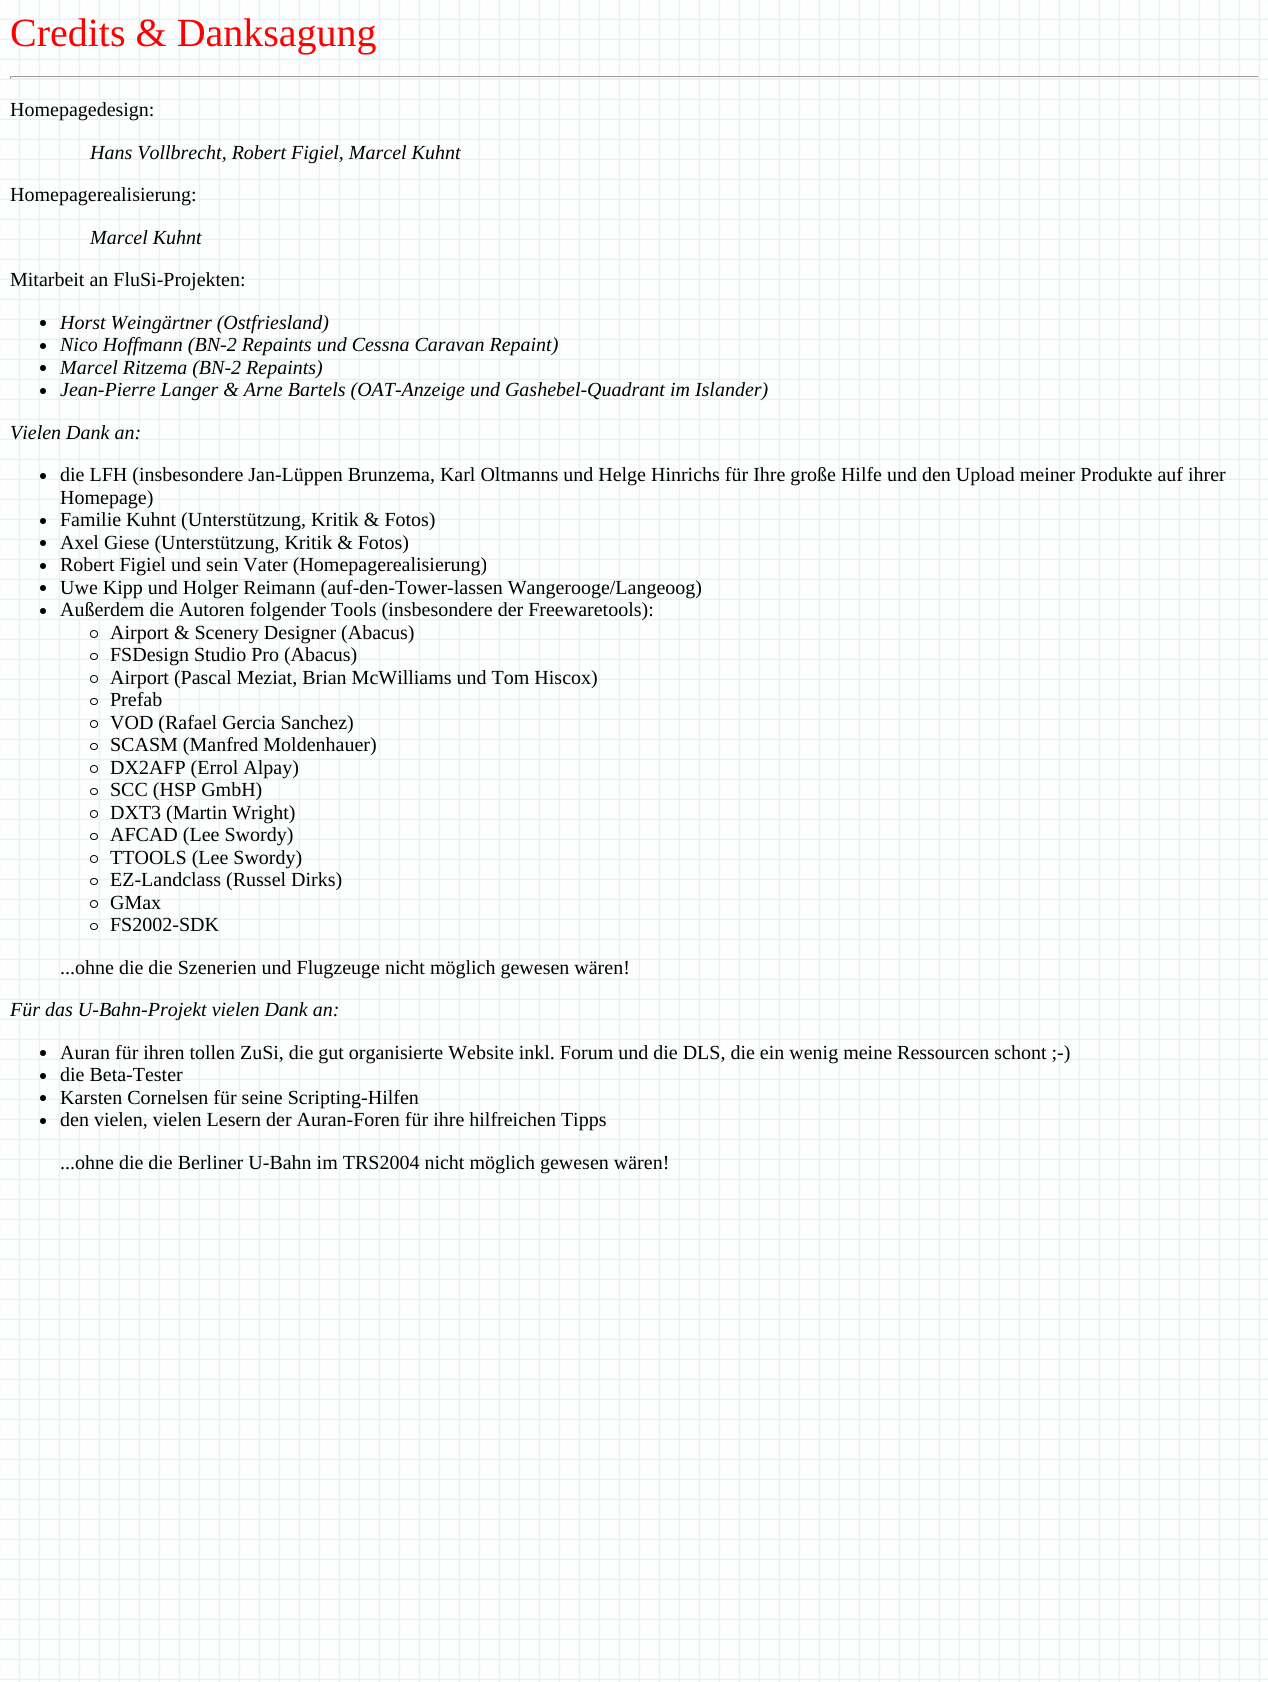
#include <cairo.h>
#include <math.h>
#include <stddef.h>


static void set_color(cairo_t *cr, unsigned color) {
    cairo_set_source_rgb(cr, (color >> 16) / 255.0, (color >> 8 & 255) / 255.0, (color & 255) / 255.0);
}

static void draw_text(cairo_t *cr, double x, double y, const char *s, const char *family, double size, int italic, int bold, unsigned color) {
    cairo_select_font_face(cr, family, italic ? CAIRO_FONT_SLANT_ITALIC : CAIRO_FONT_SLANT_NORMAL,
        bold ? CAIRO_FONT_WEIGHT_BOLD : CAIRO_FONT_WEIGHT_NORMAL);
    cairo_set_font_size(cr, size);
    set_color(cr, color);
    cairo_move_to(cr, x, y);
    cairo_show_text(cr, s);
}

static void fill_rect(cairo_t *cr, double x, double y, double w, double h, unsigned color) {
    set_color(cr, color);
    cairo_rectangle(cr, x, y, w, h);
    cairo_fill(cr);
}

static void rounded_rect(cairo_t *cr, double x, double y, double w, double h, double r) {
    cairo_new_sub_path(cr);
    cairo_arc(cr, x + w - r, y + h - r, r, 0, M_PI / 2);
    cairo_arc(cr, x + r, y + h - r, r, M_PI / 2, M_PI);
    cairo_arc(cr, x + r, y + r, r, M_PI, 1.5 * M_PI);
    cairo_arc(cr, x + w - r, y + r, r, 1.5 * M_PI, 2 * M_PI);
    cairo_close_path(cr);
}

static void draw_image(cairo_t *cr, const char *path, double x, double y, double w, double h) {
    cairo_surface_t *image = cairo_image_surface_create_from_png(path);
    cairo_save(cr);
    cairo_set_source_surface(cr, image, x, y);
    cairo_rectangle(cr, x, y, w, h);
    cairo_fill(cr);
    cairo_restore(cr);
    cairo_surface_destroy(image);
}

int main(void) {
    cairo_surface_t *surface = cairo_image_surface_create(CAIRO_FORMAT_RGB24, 1268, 1682);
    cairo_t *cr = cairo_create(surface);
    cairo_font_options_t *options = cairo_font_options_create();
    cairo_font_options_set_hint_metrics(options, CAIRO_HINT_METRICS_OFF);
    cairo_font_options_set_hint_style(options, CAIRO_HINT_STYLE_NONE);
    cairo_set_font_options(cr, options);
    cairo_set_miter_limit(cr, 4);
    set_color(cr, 0xFFFFFF);
    cairo_paint(cr);
    draw_image(cr, "assets/img1.png", 0, 0, 1268, 1682);
    draw_text(cr, 10, 46, "Credits & Danksagung", "Liberation Serif", 40, 0, 0, 0xFF0000);
    fill_rect(cr, 10, 76, 1249, 1, 0x9F9F9F);
    fill_rect(cr, 1258, 76, 1, 3, 0xEEEEEE);
    fill_rect(cr, 10, 78, 1249, 1, 0xEEEEEE);
    fill_rect(cr, 10, 76, 1, 3, 0x9F9F9F);
    draw_text(cr, 10, 116, "Homepagedesign:", "Liberation Serif", 20, 0, 0, 0x000000);
    draw_text(cr, 90, 159, "Hans Vollbrecht, Robert Figiel, Marcel Kuhnt", "Liberation Serif", 20, 1, 0, 0x000000);
    draw_text(cr, 10, 201, "Homepagerealisierung:", "Liberation Serif", 20, 0, 0, 0x000000);
    draw_text(cr, 90, 244, "Marcel Kuhnt", "Liberation Serif", 20, 1, 0, 0x000000);
    draw_text(cr, 10, 286, "Mitarbeit an FluSi-Projekten:", "Liberation Serif", 20, 0, 0, 0x000000);
    cairo_new_path(cr);
    cairo_arc(cr, 43, 323, 3, 0, 2 * M_PI);
    cairo_fill(cr);
    draw_text(cr, 60, 329, "Horst Weingärtner (Ostfriesland)", "Liberation Serif", 20, 1, 0, 0x000000);
    cairo_new_path(cr);
    cairo_arc(cr, 43, 346, 3, 0, 2 * M_PI);
    cairo_fill(cr);
    draw_text(cr, 60, 351, "Nico Hoffmann (BN-2 Repaints und Cessna Caravan Repaint)", "Liberation Serif", 20, 1, 0, 0x000000);
    cairo_new_path(cr);
    cairo_arc(cr, 43, 368, 3, 0, 2 * M_PI);
    cairo_fill(cr);
    draw_text(cr, 60, 374, "Marcel Ritzema (BN-2 Repaints)", "Liberation Serif", 20, 1, 0, 0x000000);
    cairo_new_path(cr);
    cairo_arc(cr, 43, 391, 3, 0, 2 * M_PI);
    cairo_fill(cr);
    draw_text(cr, 60, 396, "Jean-Pierre Langer & Arne Bartels (OAT-Anzeige und Gashebel-Quadrant im Islander)", "Liberation Serif", 20, 1, 0, 0x000000);
    draw_text(cr, 10, 439, "Vielen Dank an:", "Liberation Serif", 20, 1, 0, 0x000000);
    cairo_new_path(cr);
    cairo_arc(cr, 43, 476, 3, 0, 2 * M_PI);
    cairo_fill(cr);
    draw_text(cr, 60, 481, "die LFH (insbesondere Jan-Lüppen Brunzema, Karl Oltmanns und Helge Hinrichs für Ihre große Hilfe und den Upload meiner Produkte auf ihrer", "Liberation Serif", 20, 0, 0, 0x000000);
    draw_text(cr, 60, 504, "Homepage)", "Liberation Serif", 20, 0, 0, 0x000000);
    cairo_new_path(cr);
    cairo_arc(cr, 43, 521, 3, 0, 2 * M_PI);
    cairo_fill(cr);
    draw_text(cr, 60, 526, "Familie Kuhnt (Unterstützung, Kritik & Fotos)", "Liberation Serif", 20, 0, 0, 0x000000);
    cairo_new_path(cr);
    cairo_arc(cr, 43, 543, 3, 0, 2 * M_PI);
    cairo_fill(cr);
    draw_text(cr, 60, 549, "Axel Giese (Unterstützung, Kritik & Fotos)", "Liberation Serif", 20, 0, 0, 0x000000);
    cairo_new_path(cr);
    cairo_arc(cr, 43, 566, 3, 0, 2 * M_PI);
    cairo_fill(cr);
    draw_text(cr, 60, 571, "Robert Figiel und sein Vater (Homepagerealisierung)", "Liberation Serif", 20, 0, 0, 0x000000);
    cairo_new_path(cr);
    cairo_arc(cr, 43, 588, 3, 0, 2 * M_PI);
    cairo_fill(cr);
    draw_text(cr, 60, 594, "Uwe Kipp und Holger Reimann (auf-den-Tower-lassen Wangerooge/Langeoog)", "Liberation Serif", 20, 0, 0, 0x000000);
    cairo_new_path(cr);
    cairo_arc(cr, 43, 611, 3, 0, 2 * M_PI);
    cairo_fill(cr);
    draw_text(cr, 60, 616, "Außerdem die Autoren folgender Tools (insbesondere der Freewaretools):", "Liberation Serif", 20, 0, 0, 0x000000);
    cairo_new_path(cr);
    cairo_arc(cr, 94, 634, 3.5, 0, 2 * M_PI);
    cairo_set_line_width(cr, 1);
    cairo_stroke(cr);
    draw_text(cr, 110, 639, "Airport & Scenery Designer (Abacus)", "Liberation Serif", 20, 0, 0, 0x000000);
    rounded_rect(cr, 90.5, 653.5, 7, 6, 3);
    cairo_stroke(cr);
    draw_text(cr, 110, 661, "FSDesign Studio Pro (Abacus)", "Liberation Serif", 20, 0, 0, 0x000000);
    cairo_new_path(cr);
    cairo_arc(cr, 94, 679, 3.5, 0, 2 * M_PI);
    cairo_stroke(cr);
    draw_text(cr, 110, 684, "Airport (Pascal Meziat, Brian McWilliams und Tom Hiscox)", "Liberation Serif", 20, 0, 0, 0x000000);
    rounded_rect(cr, 90.5, 698.5, 7, 6, 3);
    cairo_stroke(cr);
    draw_text(cr, 110, 706, "Prefab", "Liberation Serif", 20, 0, 0, 0x000000);
    cairo_new_path(cr);
    cairo_arc(cr, 94, 724, 3.5, 0, 2 * M_PI);
    cairo_stroke(cr);
    draw_text(cr, 110, 729, "VOD (Rafael Gercia Sanchez)", "Liberation Serif", 20, 0, 0, 0x000000);
    rounded_rect(cr, 90.5, 743.5, 7, 6, 3);
    cairo_stroke(cr);
    draw_text(cr, 110, 751, "SCASM (Manfred Moldenhauer)", "Liberation Serif", 20, 0, 0, 0x000000);
    cairo_new_path(cr);
    cairo_arc(cr, 94, 769, 3.5, 0, 2 * M_PI);
    cairo_stroke(cr);
    draw_text(cr, 110, 774, "DX2AFP (Errol Alpay)", "Liberation Serif", 20, 0, 0, 0x000000);
    rounded_rect(cr, 90.5, 788.5, 7, 6, 3);
    cairo_stroke(cr);
    draw_text(cr, 110, 796, "SCC (HSP GmbH)", "Liberation Serif", 20, 0, 0, 0x000000);
    cairo_new_path(cr);
    cairo_arc(cr, 94, 814, 3.5, 0, 2 * M_PI);
    cairo_stroke(cr);
    draw_text(cr, 110, 819, "DXT3 (Martin Wright)", "Liberation Serif", 20, 0, 0, 0x000000);
    rounded_rect(cr, 90.5, 833.5, 7, 6, 3);
    cairo_stroke(cr);
    draw_text(cr, 110, 841, "AFCAD (Lee Swordy)", "Liberation Serif", 20, 0, 0, 0x000000);
    cairo_new_path(cr);
    cairo_arc(cr, 94, 859, 3.5, 0, 2 * M_PI);
    cairo_stroke(cr);
    draw_text(cr, 110, 864, "TTOOLS (Lee Swordy)", "Liberation Serif", 20, 0, 0, 0x000000);
    rounded_rect(cr, 90.5, 878.5, 7, 6, 3);
    cairo_stroke(cr);
    draw_text(cr, 110, 886, "EZ-Landclass (Russel Dirks)", "Liberation Serif", 20, 0, 0, 0x000000);
    cairo_new_path(cr);
    cairo_arc(cr, 94, 904, 3.5, 0, 2 * M_PI);
    cairo_stroke(cr);
    draw_text(cr, 110, 909, "GMax", "Liberation Serif", 20, 0, 0, 0x000000);
    rounded_rect(cr, 90.5, 923.5, 7, 6, 3);
    cairo_stroke(cr);
    draw_text(cr, 110, 931, "FS2002-SDK", "Liberation Serif", 20, 0, 0, 0x000000);
    draw_text(cr, 60, 974, "...ohne die die Szenerien und Flugzeuge nicht möglich gewesen wären!", "Liberation Serif", 20, 0, 0, 0x000000);
    draw_text(cr, 10, 1016, "Für das U-Bahn-Projekt vielen Dank an:", "Liberation Serif", 20, 1, 0, 0x000000);
    cairo_new_path(cr);
    cairo_arc(cr, 43, 1053, 3, 0, 2 * M_PI);
    cairo_fill(cr);
    draw_text(cr, 60, 1059, "Auran für ihren tollen ZuSi, die gut organisierte Website inkl. Forum und die DLS, die ein wenig meine Ressourcen schont ;-)", "Liberation Serif", 20, 0, 0, 0x000000);
    cairo_new_path(cr);
    cairo_arc(cr, 43, 1076, 3, 0, 2 * M_PI);
    cairo_fill(cr);
    draw_text(cr, 60, 1081, "die Beta-Tester", "Liberation Serif", 20, 0, 0, 0x000000);
    cairo_new_path(cr);
    cairo_arc(cr, 43, 1098, 3, 0, 2 * M_PI);
    cairo_fill(cr);
    draw_text(cr, 60, 1104, "Karsten Cornelsen für seine Scripting-Hilfen", "Liberation Serif", 20, 0, 0, 0x000000);
    cairo_new_path(cr);
    cairo_arc(cr, 43, 1121, 3, 0, 2 * M_PI);
    cairo_fill(cr);
    draw_text(cr, 60, 1126, "den vielen, vielen Lesern der Auran-Foren für ihre hilfreichen Tipps", "Liberation Serif", 20, 0, 0, 0x000000);
    draw_text(cr, 60, 1169, "...ohne die die Berliner U-Bahn im TRS2004 nicht möglich gewesen wären!", "Liberation Serif", 20, 0, 0, 0x000000);
    cairo_surface_write_to_png(surface, "output.png");
    cairo_font_options_destroy(options);
    cairo_destroy(cr);
    cairo_surface_destroy(surface);
    return 0;
}
